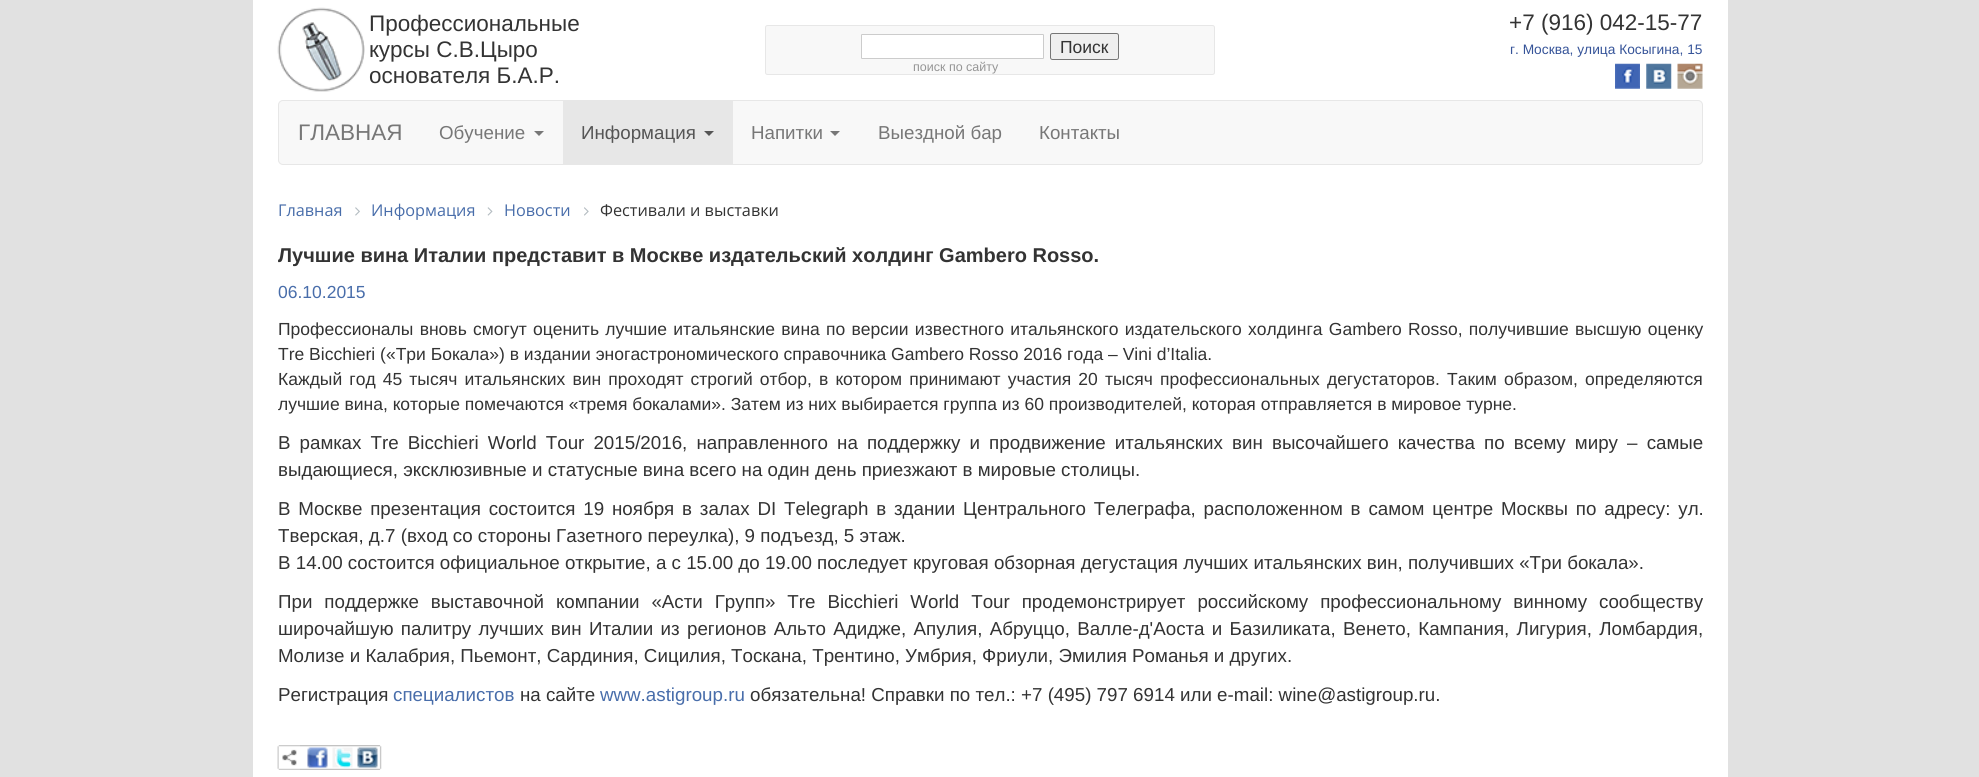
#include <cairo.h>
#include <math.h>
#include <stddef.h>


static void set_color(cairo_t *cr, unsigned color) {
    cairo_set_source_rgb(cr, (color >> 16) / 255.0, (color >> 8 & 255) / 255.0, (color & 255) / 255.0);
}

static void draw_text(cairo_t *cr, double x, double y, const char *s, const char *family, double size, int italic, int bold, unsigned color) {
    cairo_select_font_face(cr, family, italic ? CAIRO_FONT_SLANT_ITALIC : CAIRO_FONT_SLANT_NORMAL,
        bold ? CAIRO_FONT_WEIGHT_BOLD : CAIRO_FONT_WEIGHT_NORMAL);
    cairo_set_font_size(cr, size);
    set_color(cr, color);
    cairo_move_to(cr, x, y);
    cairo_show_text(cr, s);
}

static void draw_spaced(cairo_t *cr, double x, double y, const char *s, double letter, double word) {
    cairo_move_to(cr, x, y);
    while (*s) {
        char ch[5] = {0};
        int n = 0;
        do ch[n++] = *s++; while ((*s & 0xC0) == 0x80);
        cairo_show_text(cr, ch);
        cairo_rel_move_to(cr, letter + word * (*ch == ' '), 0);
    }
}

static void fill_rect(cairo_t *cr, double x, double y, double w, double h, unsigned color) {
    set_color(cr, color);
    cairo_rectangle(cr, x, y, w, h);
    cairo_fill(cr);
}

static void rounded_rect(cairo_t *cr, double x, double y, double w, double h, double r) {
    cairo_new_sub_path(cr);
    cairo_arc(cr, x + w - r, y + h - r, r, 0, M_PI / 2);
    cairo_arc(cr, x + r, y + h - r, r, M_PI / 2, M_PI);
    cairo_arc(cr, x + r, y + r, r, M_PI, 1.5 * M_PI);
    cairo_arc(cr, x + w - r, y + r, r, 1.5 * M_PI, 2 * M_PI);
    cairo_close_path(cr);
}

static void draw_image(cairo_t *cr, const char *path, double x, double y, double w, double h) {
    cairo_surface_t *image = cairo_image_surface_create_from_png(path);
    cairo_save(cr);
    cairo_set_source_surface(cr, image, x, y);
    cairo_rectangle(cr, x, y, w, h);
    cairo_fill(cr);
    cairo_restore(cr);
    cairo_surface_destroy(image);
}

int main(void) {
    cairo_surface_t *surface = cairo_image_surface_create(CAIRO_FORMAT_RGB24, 1979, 777);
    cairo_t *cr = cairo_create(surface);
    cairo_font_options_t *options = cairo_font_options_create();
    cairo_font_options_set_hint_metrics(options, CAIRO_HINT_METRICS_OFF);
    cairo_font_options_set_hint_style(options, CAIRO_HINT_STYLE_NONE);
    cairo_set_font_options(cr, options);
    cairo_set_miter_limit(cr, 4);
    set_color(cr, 0xE1E1E1);
    cairo_paint(cr);
    fill_rect(cr, 253, 0, 1475, 777, 0xFFFFFF);
    draw_image(cr, "assets/img1.png", 277, 7, 88, 85);
    draw_text(cr, 369, 31, "Профессиональные", "Liberation Sans", 22.5, 0, 0, 0x333333);
    draw_text(cr, 369, 57, "курсы С.В.Цыро", "Liberation Sans", 22.5, 0, 0, 0x333333);
    draw_text(cr, 369, 83, "основателя Б.А.Р.", "Liberation Sans", 22.5, 0, 0, 0x333333);
    set_color(cr, 0xF8F8F8);
    rounded_rect(cr, 765.5, 25.5, 449, 49, 2);
    cairo_fill_preserve(cr);
    set_color(cr, 0xE7E7E7);
    cairo_set_line_width(cr, 1);
    cairo_stroke(cr);
    set_color(cr, 0xFFFFFF);
    rounded_rect(cr, 861.5, 34.5, 182, 24, 0.5);
    cairo_fill_preserve(cr);
    set_color(cr, 0xCCCCCC);
    cairo_stroke(cr);
    set_color(cr, 0xEFEFEF);
    rounded_rect(cr, 1050.5, 33.5, 68, 26, 2);
    cairo_fill_preserve(cr);
    set_color(cr, 0x767676);
    cairo_stroke(cr);
    draw_text(cr, 1060, 53, "Поиск", "Liberation Sans", 17.5, 0, 0, 0x333333);
    draw_text(cr, 913, 71, "поиск по сайту", "Liberation Sans", 12.5, 0, 0, 0x959595);
    draw_text(cr, 1509, 30, "+7 (916) 042-15-77", "Liberation Sans", 22.5, 0, 0, 0x333333);
    draw_text(cr, 1510, 54, "г. Москва, улица Косыгина, 15", "Liberation Sans", 13.75, 0, 0, 0x365499);
    draw_image(cr, "assets/img2.png", 1615, 63, 25, 26);
    draw_image(cr, "assets/img3.png", 1646, 63, 26, 26);
    draw_image(cr, "assets/img4.png", 1677, 63, 26, 26);
    set_color(cr, 0xF8F8F8);
    rounded_rect(cr, 278.5, 100.5, 1424, 64, 4.5);
    cairo_fill_preserve(cr);
    set_color(cr, 0xE7E7E7);
    cairo_stroke(cr);
    draw_text(cr, 298, 140, "ГЛАВНАЯ", "Liberation Sans", 22.5, 0, 0, 0x777777);
    draw_text(cr, 439, 139, "Обучение", "Liberation Sans", 18.75, 0, 0, 0x777777);
    cairo_new_path(cr);
    cairo_move_to(cr, 534, 131);
    cairo_line_to(cr, 544, 131);
    cairo_line_to(cr, 539, 136);
    cairo_close_path(cr);
    cairo_fill(cr);
    fill_rect(cr, 563, 101, 170, 63, 0xE7E7E7);
    draw_text(cr, 581, 139, "Информация", "Liberation Sans", 18.75, 0, 0, 0x555555);
    cairo_new_path(cr);
    cairo_move_to(cr, 704, 131);
    cairo_line_to(cr, 714, 131);
    cairo_line_to(cr, 709, 136);
    cairo_close_path(cr);
    cairo_fill(cr);
    draw_text(cr, 751, 139, "Напитки", "Liberation Sans", 18.75, 0, 0, 0x777777);
    cairo_new_path(cr);
    cairo_move_to(cr, 830, 131);
    cairo_line_to(cr, 840, 131);
    cairo_line_to(cr, 835, 136);
    cairo_close_path(cr);
    cairo_fill(cr);
    draw_text(cr, 878, 139, "Выездной бар", "Liberation Sans", 18.75, 0, 0, 0x777777);
    draw_text(cr, 1039, 139, "Контакты", "Liberation Sans", 18.75, 0, 0, 0x777777);
    draw_text(cr, 278, 216, "Главная", "Open Sans", 16.25, 0, 0, 0x486DAA);
    draw_image(cr, "assets/img5.png", 355, 207, 5, 9);
    draw_text(cr, 371, 216, "Информация", "Open Sans", 16.25, 0, 0, 0x486DAA);
    draw_image(cr, "assets/img6.png", 487, 207, 6, 9);
    draw_text(cr, 504, 216, "Новости", "Open Sans", 16.25, 0, 0, 0x486DAA);
    draw_image(cr, "assets/img7.png", 584, 207, 5, 9);
    draw_text(cr, 600, 216, "Фестивали и выставки", "Open Sans", 16.25, 0, 0, 0x333333);
    draw_text(cr, 278, 262, "Лучшие вина Италии представит в Москве издательский холдинг Gambero Rosso.", "Liberation Sans", 20, 0, 1, 0x333333);
    draw_text(cr, 278, 298, "06.10.2015", "Liberation Sans", 17.5, 0, 0, 0x486DAA);
    set_color(cr, 0x333333);
    draw_spaced(cr, 278, 335, "Профессионалы вновь смогут оценить лучшие итальянские вина по версии известного итальянского издательского холдинга Gambero Rosso, получившие высшую оценку", 0, 1.4);
    draw_text(cr, 278, 360, "Tre Bicchieri («Три Бокала») в издании эногастрономического справочника Gambero Rosso 2016 года ‒ Vini d’Italia.", "Liberation Sans", 17.5, 0, 0, 0x333333);
    draw_spaced(cr, 278, 385, "Каждый год 45 тысяч итальянских вин проходят строгий отбор, в котором принимают участия 20 тысяч профессиональных дегустаторов. Таким образом, определяются", 0, 2.25);
    draw_text(cr, 278, 410, "лучшие вина, которые помечаются «тремя бокалами». Затем из них выбирается группа из 60 производителей, которая отправляется в мировое турне.", "Liberation Sans", 17.5, 0, 0, 0x333333);
    cairo_set_font_size(cr, 18.75);
    draw_spaced(cr, 278, 449, "В рамках Tre Bicchieri World Tour 2015/2016, направленного на поддержку и продвижение итальянских вин высочайшего качества по всему миру – самые", 0, 3.9);
    draw_text(cr, 278, 476, "выдающиеся, эксклюзивные и статусные вина всего на один день приезжают в мировые столицы.", "Liberation Sans", 18.75, 0, 0, 0x333333);
    draw_spaced(cr, 278, 515, "В Москве презентация состоится 19 ноября в залах DI Telegraph в здании Центрального Телеграфа, расположенном в самом центре Москвы по адресу: ул.", 0, 2.6);
    draw_text(cr, 278, 542, "Тверская, д.7 (вход со стороны Газетного переулка), 9 подъезд, 5 этаж.", "Liberation Sans", 18.75, 0, 0, 0x333333);
    draw_text(cr, 278, 569, "В 14.00 состоится официальное открытие, а с 15.00 до 19.00 последует круговая обзорная дегустация лучших итальянских вин, получивших «Три бокала».", "Liberation Sans", 18.75, 0, 0, 0x333333);
    draw_spaced(cr, 278, 608, "При поддержке выставочной компании «Асти Групп» Tre Bicchieri World Tour продемонстрирует российскому профессиональному винному сообществу", 0, 6.75);
    draw_spaced(cr, 278, 635, "широчайшую палитру лучших вин Италии из регионов Альто Адидже, Апулия, Абруццо, Валле-д'Аоста и Базиликата, Венето, Кампания, Лигурия, Ломбардия,", 0, 2.1);
    draw_text(cr, 278, 662, "Молизе и Калабрия, Пьемонт, Сардиния, Сицилия, Тоскана, Трентино, Умбрия, Фриули, Эмилия Романья и других.", "Liberation Sans", 18.75, 0, 0, 0x333333);
    draw_text(cr, 278, 701, "Регистрация", "Liberation Sans", 18.75, 0, 0, 0x333333);
    draw_text(cr, 393, 701, "специалистов", "Liberation Sans", 18.75, 0, 0, 0x486DAA);
    draw_text(cr, 520, 701, "на сайте", "Liberation Sans", 18.75, 0, 0, 0x333333);
    draw_text(cr, 600, 701, "www.astigroup.ru", "Liberation Sans", 18.75, 0, 0, 0x486DAA);
    draw_text(cr, 750, 701, "обязательна! Справки по тел.: +7 (495) 797 6914 или e-mail: wine@astigroup.ru.", "Liberation Sans", 18.75, 0, 0, 0x333333);
    draw_image(cr, "assets/img8.png", 277, 745, 23, 25);
    draw_image(cr, "assets/img9.png", 300, 745, 82, 25);
    draw_image(cr, "assets/img10.png", 307, 747, 21, 21);
    draw_image(cr, "assets/img11.png", 332, 747, 21, 21);
    draw_image(cr, "assets/img12.png", 357, 747, 21, 21);
    cairo_surface_write_to_png(surface, "output.png");
    cairo_font_options_destroy(options);
    cairo_destroy(cr);
    cairo_surface_destroy(surface);
    return 0;
}
